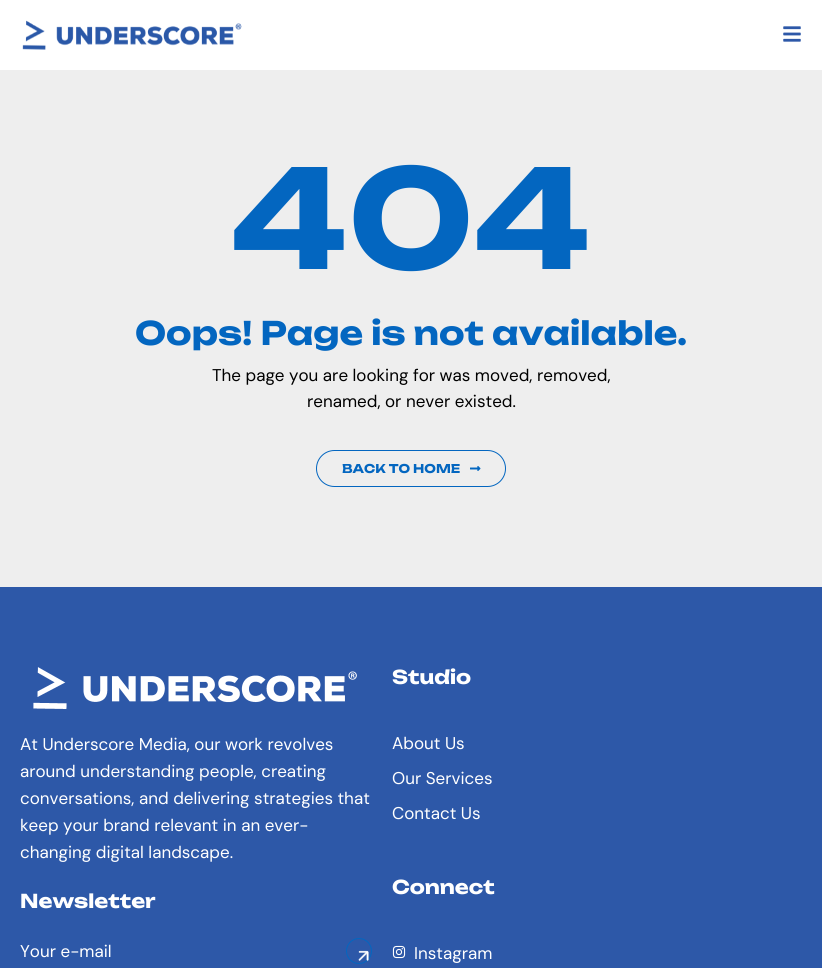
#include <cairo.h>
#include <math.h>
#include <stddef.h>


static void set_color(cairo_t *cr, unsigned color) {
    cairo_set_source_rgb(cr, (color >> 16) / 255.0, (color >> 8 & 255) / 255.0, (color & 255) / 255.0);
}

static void draw_text(cairo_t *cr, double x, double y, const char *s, const char *family, double size, int italic, int bold, unsigned color) {
    cairo_select_font_face(cr, family, italic ? CAIRO_FONT_SLANT_ITALIC : CAIRO_FONT_SLANT_NORMAL,
        bold ? CAIRO_FONT_WEIGHT_BOLD : CAIRO_FONT_WEIGHT_NORMAL);
    cairo_set_font_size(cr, size);
    set_color(cr, color);
    cairo_move_to(cr, x, y);
    cairo_show_text(cr, s);
}

static void fill_rect(cairo_t *cr, double x, double y, double w, double h, unsigned color) {
    set_color(cr, color);
    cairo_rectangle(cr, x, y, w, h);
    cairo_fill(cr);
}

static void rounded_rect(cairo_t *cr, double x, double y, double w, double h, double r) {
    cairo_new_sub_path(cr);
    cairo_arc(cr, x + w - r, y + h - r, r, 0, M_PI / 2);
    cairo_arc(cr, x + r, y + h - r, r, M_PI / 2, M_PI);
    cairo_arc(cr, x + r, y + r, r, M_PI, 1.5 * M_PI);
    cairo_arc(cr, x + w - r, y + r, r, 1.5 * M_PI, 2 * M_PI);
    cairo_close_path(cr);
}

static void draw_image(cairo_t *cr, const char *path, double x, double y, double w, double h) {
    cairo_surface_t *image = cairo_image_surface_create_from_png(path);
    cairo_save(cr);
    cairo_set_source_surface(cr, image, x, y);
    cairo_rectangle(cr, x, y, w, h);
    cairo_fill(cr);
    cairo_restore(cr);
    cairo_surface_destroy(image);
}

int main(void) {
    cairo_surface_t *surface = cairo_image_surface_create(CAIRO_FORMAT_RGB24, 822, 968);
    cairo_t *cr = cairo_create(surface);
    cairo_font_options_t *options = cairo_font_options_create();
    cairo_font_options_set_hint_metrics(options, CAIRO_HINT_METRICS_OFF);
    cairo_font_options_set_hint_style(options, CAIRO_HINT_STYLE_NONE);
    cairo_set_font_options(cr, options);
    cairo_set_miter_limit(cr, 4);
    set_color(cr, 0xEEEEEE);
    cairo_paint(cr);
    fill_rect(cr, 0, 0, 822, 70, 0xFFFFFF);
    draw_image(cr, "assets/img1.png", 22, 20, 220, 30);
    draw_image(cr, "assets/img2.png", 783, 26, 18, 16);
    draw_text(cr, 231, 269, "404", "Unbounded", 136, 0, 1, 0x0366C0);
    draw_text(cr, 135, 345, "Oops! Page is not available.", "Unbounded", 32.25, 0, 1, 0x0366C0);
    draw_text(cr, 212, 381, "The page you are looking for was moved, removed,", "DM Sans", 17, 0, 0, 0x000000);
    draw_text(cr, 307, 407, "renamed, or never existed.", "DM Sans", 17, 0, 0, 0x000000);
    rounded_rect(cr, 316.5, 450.5, 189, 36, 18);
    set_color(cr, 0x0366C0);
    cairo_set_line_width(cr, 1);
    cairo_stroke(cr);
    draw_text(cr, 342, 473, "BACK TO HOME", "Unbounded", 12, 0, 1, 0x0366C0);
    draw_image(cr, "assets/img3.png", 470, 466, 11, 5);
    fill_rect(cr, 0, 587, 822, 381, 0x2D58A8);
    draw_image(cr, "assets/img4.png", 33, 667, 324, 42);
    draw_text(cr, 20, 750, "At Underscore Media, our work revolves", "DM Sans", 17, 0, 0, 0xFFFFFF);
    draw_text(cr, 20, 777, "around understanding people, creating", "DM Sans", 17, 0, 0, 0xFFFFFF);
    draw_text(cr, 20, 804, "conversations, and delivering strategies that", "DM Sans", 17, 0, 0, 0xFFFFFF);
    draw_text(cr, 20, 831, "keep your brand relevant in an ever-", "DM Sans", 17, 0, 0, 0xFFFFFF);
    draw_text(cr, 20, 858, "changing digital landscape.", "DM Sans", 17, 0, 0, 0xFFFFFF);
    draw_text(cr, 20, 908, "Newsletter", "Unbounded", 19, 0, 1, 0xFFFFFF);
    draw_text(cr, 20, 957, "Your e-mail", "DM Sans", 17, 0, 0, 0xFFFFFF);
    cairo_new_path(cr);
    cairo_arc(cr, 359, 951, 12.5, 0, 2 * M_PI);
    set_color(cr, 0x0366C0);
    cairo_stroke(cr);
    draw_image(cr, "assets/img5.png", 358, 950, 11, 11);
    draw_text(cr, 392, 684, "Studio", "Unbounded", 19, 0, 1, 0xFFFFFF);
    draw_text(cr, 392, 749, "About Us", "DM Sans", 17, 0, 0, 0xFFFFFF);
    draw_text(cr, 392, 784, "Our Services", "DM Sans", 17, 0, 0, 0xFFFFFF);
    draw_text(cr, 392, 819, "Contact Us", "DM Sans", 17, 0, 0, 0xFFFFFF);
    draw_text(cr, 392, 894, "Connect", "Unbounded", 19, 0, 1, 0xFFFFFF);
    draw_image(cr, "assets/img6.png", 392, 945, 14, 14);
    draw_text(cr, 414, 959, "Instagram", "DM Sans", 17, 0, 0, 0xFFFFFF);
    cairo_surface_write_to_png(surface, "output.png");
    cairo_font_options_destroy(options);
    cairo_destroy(cr);
    cairo_surface_destroy(surface);
    return 0;
}
